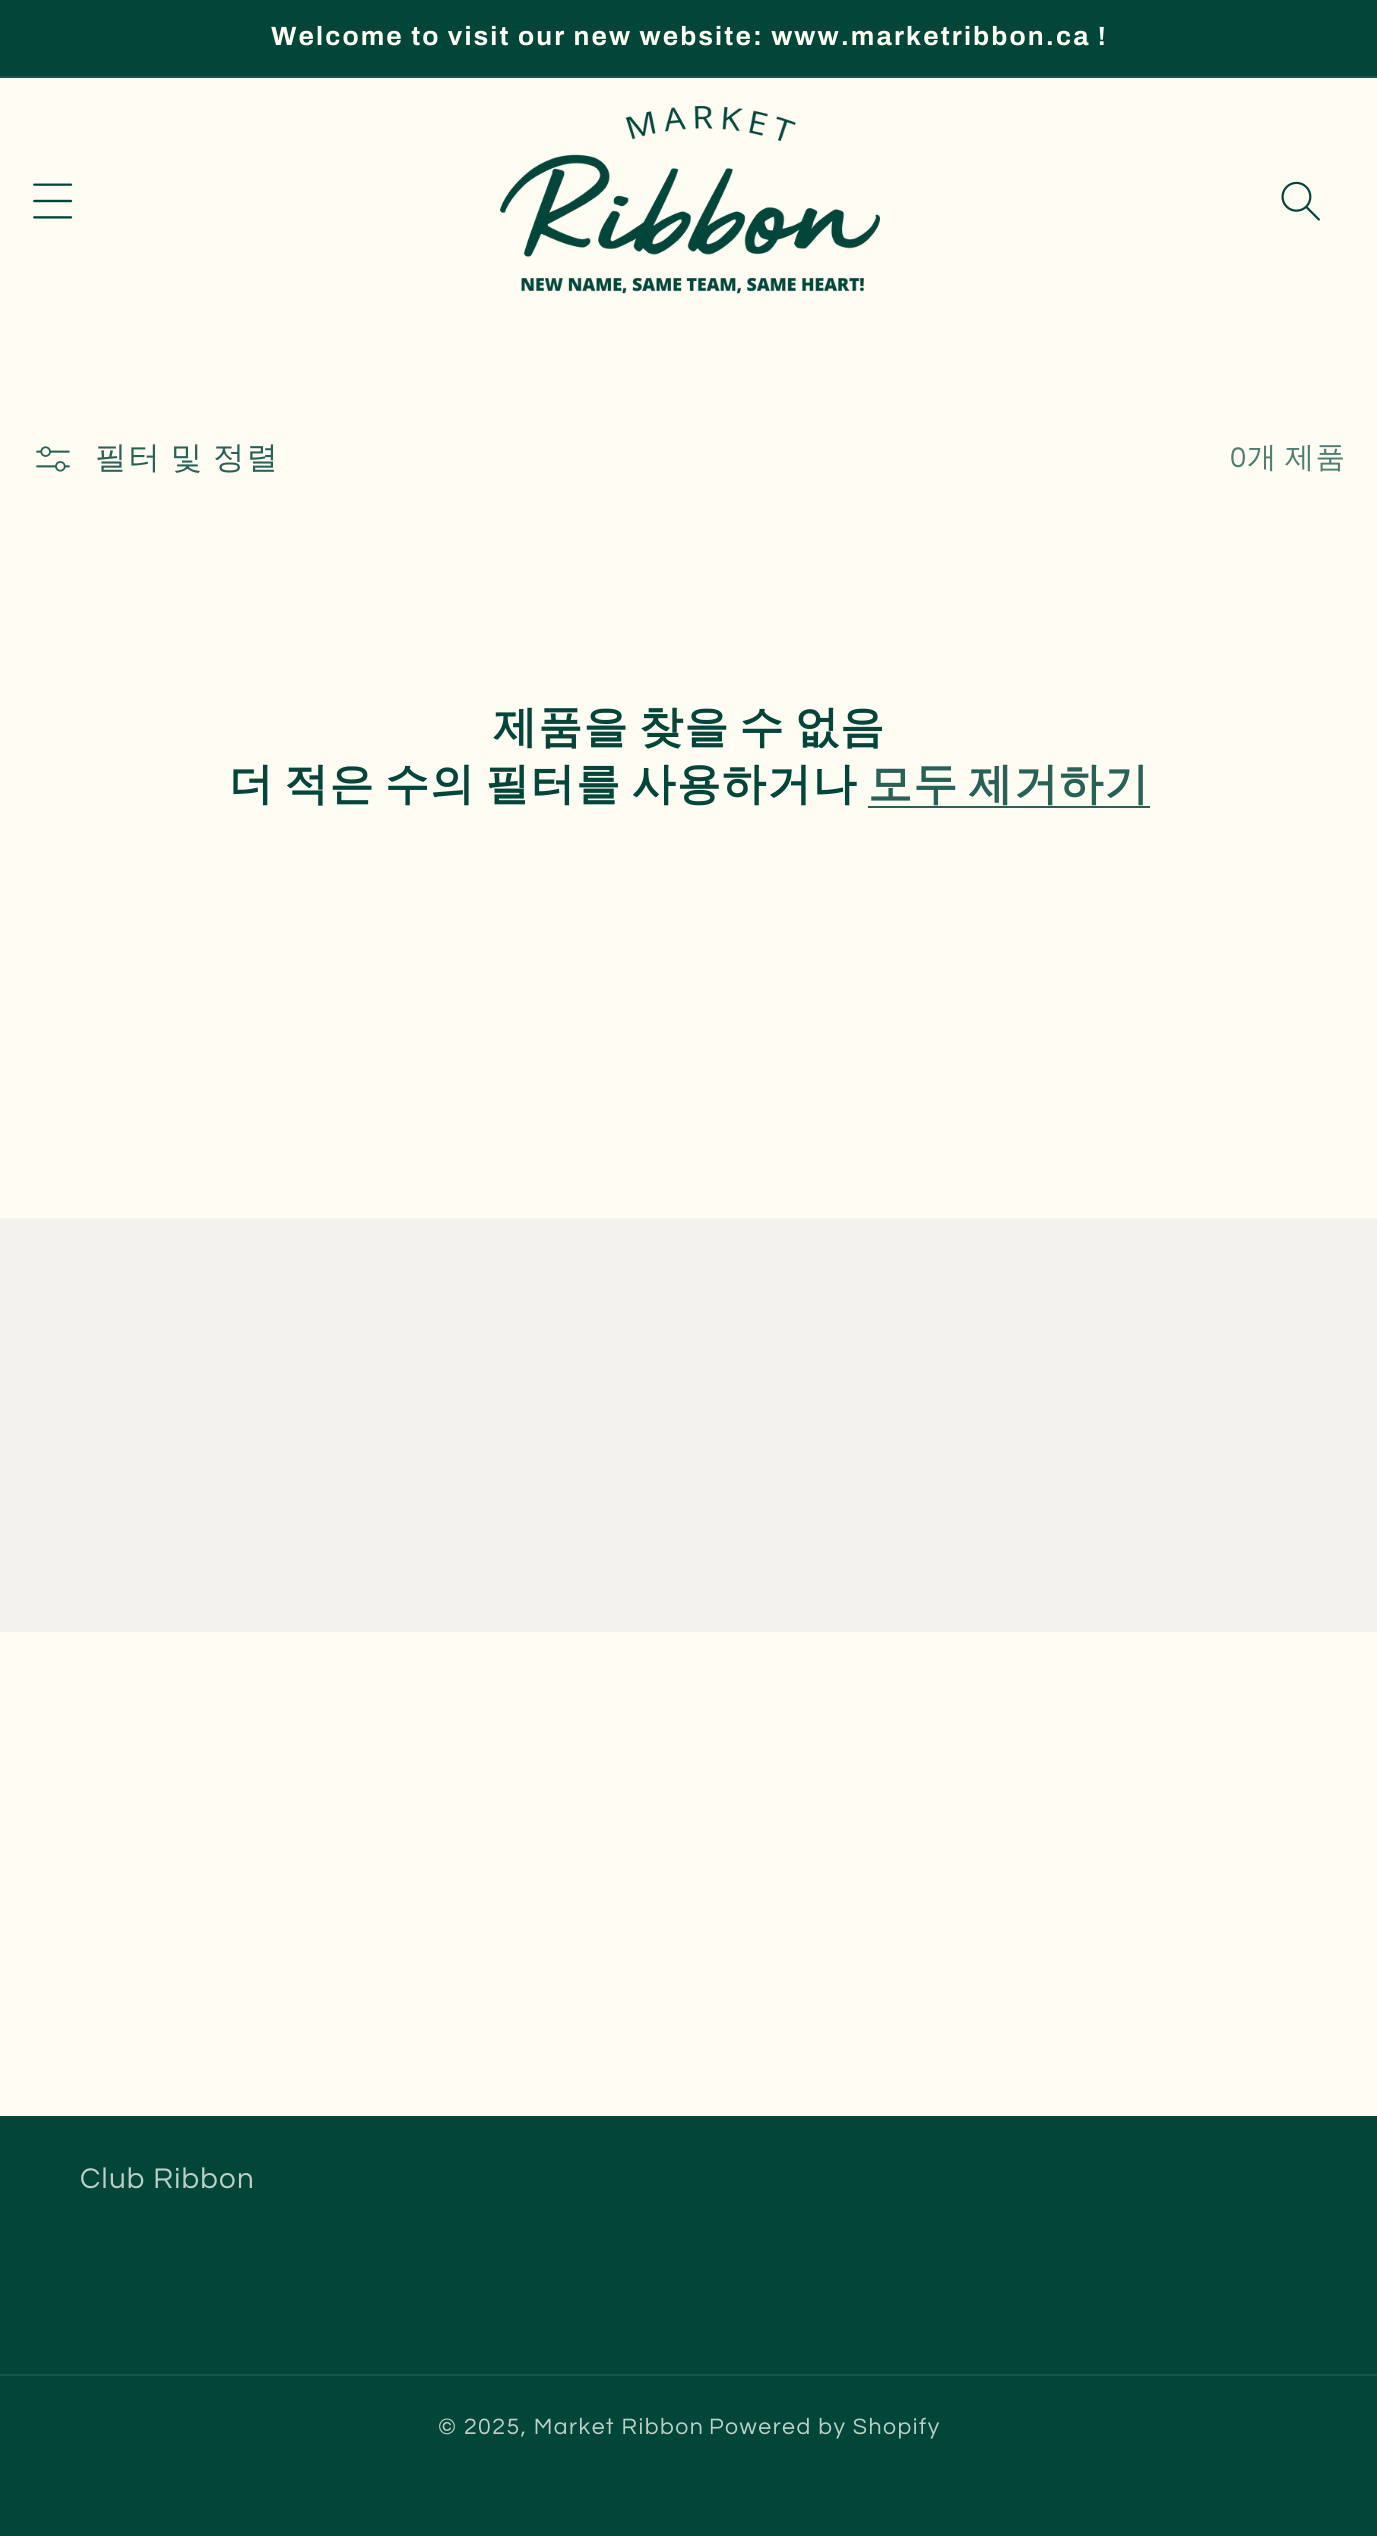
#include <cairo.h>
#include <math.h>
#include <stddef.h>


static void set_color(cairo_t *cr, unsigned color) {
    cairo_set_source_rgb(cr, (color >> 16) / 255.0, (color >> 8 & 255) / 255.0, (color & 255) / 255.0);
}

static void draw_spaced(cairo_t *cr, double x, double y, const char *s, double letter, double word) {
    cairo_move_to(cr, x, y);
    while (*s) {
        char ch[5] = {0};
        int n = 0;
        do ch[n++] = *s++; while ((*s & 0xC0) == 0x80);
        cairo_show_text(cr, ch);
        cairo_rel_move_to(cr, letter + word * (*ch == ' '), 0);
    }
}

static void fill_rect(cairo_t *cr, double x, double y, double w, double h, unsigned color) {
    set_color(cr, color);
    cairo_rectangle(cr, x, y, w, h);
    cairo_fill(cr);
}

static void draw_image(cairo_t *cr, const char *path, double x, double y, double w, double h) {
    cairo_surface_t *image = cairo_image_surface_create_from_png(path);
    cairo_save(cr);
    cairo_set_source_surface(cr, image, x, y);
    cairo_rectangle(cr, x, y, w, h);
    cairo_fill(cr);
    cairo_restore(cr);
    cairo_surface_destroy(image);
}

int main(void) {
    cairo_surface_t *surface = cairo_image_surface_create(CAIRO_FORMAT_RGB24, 1377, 2536);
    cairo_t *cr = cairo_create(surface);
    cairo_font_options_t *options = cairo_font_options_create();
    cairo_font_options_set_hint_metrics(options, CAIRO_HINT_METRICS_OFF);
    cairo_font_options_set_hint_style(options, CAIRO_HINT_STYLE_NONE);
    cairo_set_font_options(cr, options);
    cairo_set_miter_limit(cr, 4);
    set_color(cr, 0xFFFCF4);
    cairo_paint(cr);
    fill_rect(cr, 0, 0, 1377, 76, 0x02463A);
    fill_rect(cr, 0, 76, 1377, 2, 0x165549);
    cairo_select_font_face(cr, "Archivo", CAIRO_FONT_SLANT_NORMAL, CAIRO_FONT_WEIGHT_BOLD);
    cairo_set_font_size(cr, 26.4);
    set_color(cr, 0xFFFCF4);
    draw_spaced(cr, 271, 45, "Welcome to visit our new website: www.marketribbon.ca !", 2.1, 0);
    draw_image(cr, "assets/img1.png", 33, 183, 40, 36);
    draw_image(cr, "assets/img2.png", 500, 106, 380, 188);
    draw_image(cr, "assets/img3.png", 1281, 181, 39, 40);
    draw_image(cr, "assets/img4.png", 36, 446, 34, 26);
    cairo_select_font_face(cr, "WenQuanYi Zen Hei Medium", CAIRO_FONT_SLANT_NORMAL, CAIRO_FONT_WEIGHT_NORMAL);
    cairo_set_font_size(cr, 31.5);
    set_color(cr, 0x286156);
    draw_spaced(cr, 95, 468, "필터 및 정렬", 2.1, -3);
    cairo_select_font_face(cr, "Questrial", CAIRO_FONT_SLANT_NORMAL, CAIRO_FONT_WEIGHT_NORMAL);
    cairo_set_font_size(cr, 29.5);
    set_color(cr, 0x4E7D72);
    draw_spaced(cr, 1230, 467, "0", 1.25, 0);
    cairo_select_font_face(cr, "WenQuanYi Zen Hei Medium", CAIRO_FONT_SLANT_NORMAL, CAIRO_FONT_WEIGHT_NORMAL);
    draw_spaced(cr, 1247, 467, "개 제품", 1.25, -3);
    cairo_select_font_face(cr, "WenQuanYi Zen Hei", CAIRO_FONT_SLANT_NORMAL, CAIRO_FONT_WEIGHT_BOLD);
    cairo_set_font_size(cr, 44);
    set_color(cr, 0x02463A);
    draw_spaced(cr, 493, 742, "제품을 찾을 수 없음", 1.3, -4.5);
    draw_spaced(cr, 229, 799, "더 적은 수의 필터를 사용하거나", 1.3, -4.5);
    set_color(cr, 0x286156);
    draw_spaced(cr, 868, 799, "모두 제거하기", 1.3, -4.5);
    fill_rect(cr, 868, 806, 282, 2, 0x286156);
    fill_rect(cr, 0, 1218, 1377, 414, 0xF4F2EC);
    fill_rect(cr, 0, 2116, 1377, 420, 0x02463A);
    cairo_select_font_face(cr, "Questrial", CAIRO_FONT_SLANT_NORMAL, CAIRO_FONT_WEIGHT_NORMAL);
    cairo_set_font_size(cr, 29.5);
    set_color(cr, 0xC0CFC6);
    draw_spaced(cr, 80, 2188, "Club Ribbon", 1.25, 0);
    fill_rect(cr, 0, 2374, 1377, 2, 0x165549);
    cairo_set_font_size(cr, 23.1);
    set_color(cr, 0xC0CFC6);
    draw_spaced(cr, 438, 2434, "© 2025, Market Ribbon", 1.5, 0);
    draw_spaced(cr, 709, 2434, "Powered by Shopify", 1.5, 0);
    cairo_surface_write_to_png(surface, "output.png");
    cairo_font_options_destroy(options);
    cairo_destroy(cr);
    cairo_surface_destroy(surface);
    return 0;
}
